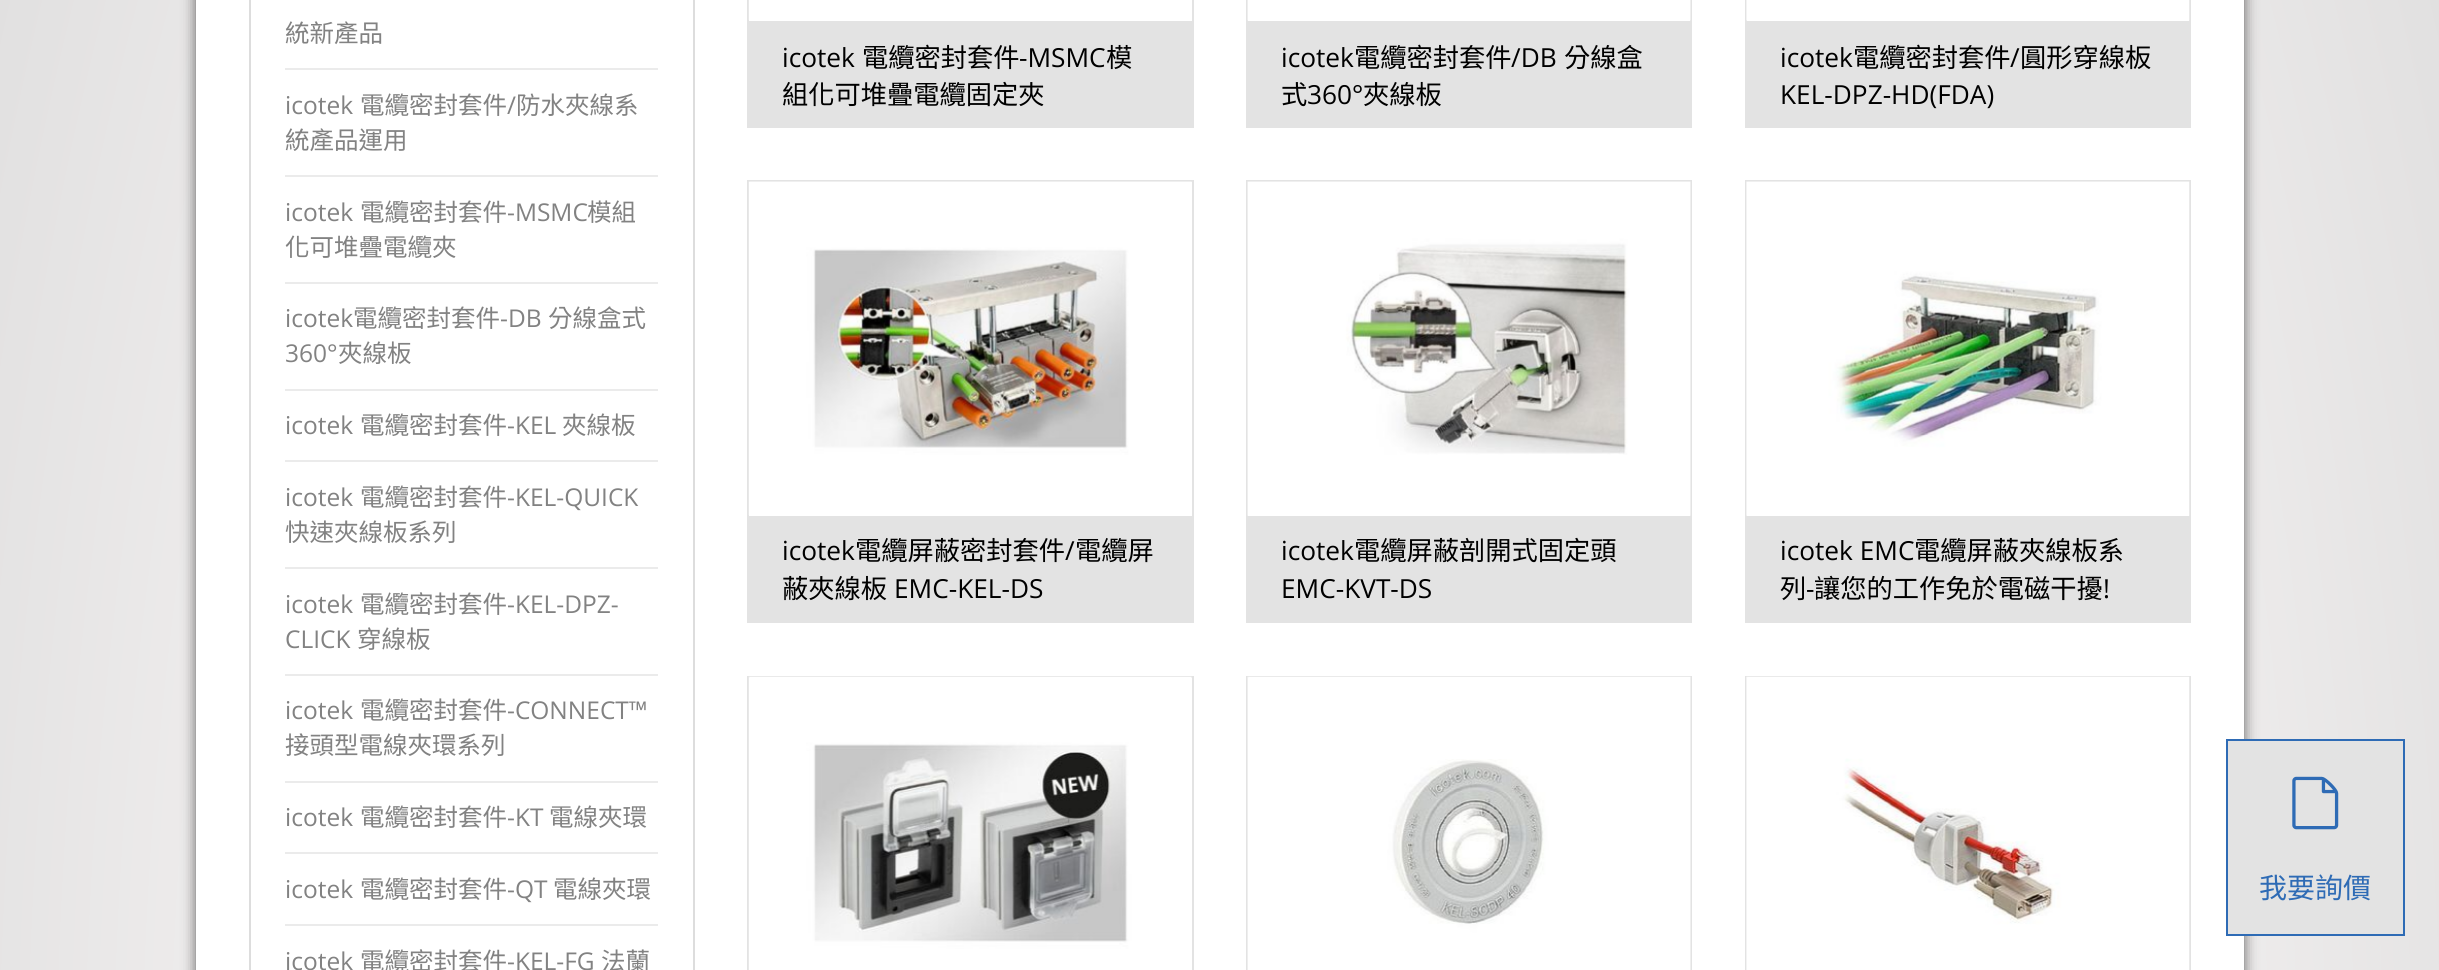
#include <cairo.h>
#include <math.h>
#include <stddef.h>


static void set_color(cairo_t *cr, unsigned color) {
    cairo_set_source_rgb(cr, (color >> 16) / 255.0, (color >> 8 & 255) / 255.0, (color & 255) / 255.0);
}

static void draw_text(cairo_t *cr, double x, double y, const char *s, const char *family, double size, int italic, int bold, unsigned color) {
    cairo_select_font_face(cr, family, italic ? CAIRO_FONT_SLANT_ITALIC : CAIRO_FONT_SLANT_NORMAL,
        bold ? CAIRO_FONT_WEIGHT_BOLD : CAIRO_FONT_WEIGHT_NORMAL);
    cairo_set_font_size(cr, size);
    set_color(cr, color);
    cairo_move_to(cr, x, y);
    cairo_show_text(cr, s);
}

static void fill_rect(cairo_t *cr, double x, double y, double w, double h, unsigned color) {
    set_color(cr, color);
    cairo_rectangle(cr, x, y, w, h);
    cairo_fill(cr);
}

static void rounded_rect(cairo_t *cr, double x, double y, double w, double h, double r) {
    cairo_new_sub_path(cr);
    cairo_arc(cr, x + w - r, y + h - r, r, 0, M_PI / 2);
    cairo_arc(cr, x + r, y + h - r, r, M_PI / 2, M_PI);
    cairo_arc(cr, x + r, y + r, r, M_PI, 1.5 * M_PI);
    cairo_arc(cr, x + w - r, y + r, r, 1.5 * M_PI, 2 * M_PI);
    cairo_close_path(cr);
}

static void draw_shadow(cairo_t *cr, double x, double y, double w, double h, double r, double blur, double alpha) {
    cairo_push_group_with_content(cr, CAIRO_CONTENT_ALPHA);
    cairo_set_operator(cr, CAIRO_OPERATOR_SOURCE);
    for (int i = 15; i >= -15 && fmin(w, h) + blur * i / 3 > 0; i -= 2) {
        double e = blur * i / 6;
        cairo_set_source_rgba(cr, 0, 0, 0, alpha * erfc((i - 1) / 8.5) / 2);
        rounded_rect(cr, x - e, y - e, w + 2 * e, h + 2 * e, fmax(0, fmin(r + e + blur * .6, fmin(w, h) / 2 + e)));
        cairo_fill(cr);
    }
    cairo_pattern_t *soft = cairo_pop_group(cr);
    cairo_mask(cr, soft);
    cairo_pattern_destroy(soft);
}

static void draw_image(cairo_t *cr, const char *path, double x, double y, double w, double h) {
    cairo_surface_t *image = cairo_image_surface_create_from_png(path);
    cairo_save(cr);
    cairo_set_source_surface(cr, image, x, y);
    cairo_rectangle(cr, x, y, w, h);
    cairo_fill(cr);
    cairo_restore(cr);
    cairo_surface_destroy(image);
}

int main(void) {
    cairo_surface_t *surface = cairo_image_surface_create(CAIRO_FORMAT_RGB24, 2439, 970);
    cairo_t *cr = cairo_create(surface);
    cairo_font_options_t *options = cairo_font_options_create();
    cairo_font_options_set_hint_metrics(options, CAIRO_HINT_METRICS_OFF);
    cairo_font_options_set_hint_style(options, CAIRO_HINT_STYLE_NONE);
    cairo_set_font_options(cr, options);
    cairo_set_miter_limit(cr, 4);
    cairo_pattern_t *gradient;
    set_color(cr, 0xFFFFFF);
    cairo_paint(cr);
    gradient = cairo_pattern_create_radial(0, 0, 0, 0, 0, 1);
    cairo_pattern_set_matrix(gradient, &(cairo_matrix_t){1.0 / 1725, 0, 0, 1.0 / 3423, -1.0 * 1220 / 1725, -1.0 * 1129 / 3423});
    cairo_pattern_add_color_stop_rgba(gradient, 0.32, 1, 0.988, 0.988, 1);
    cairo_pattern_add_color_stop_rgba(gradient, 1, 0.827, 0.827, 0.827, 1);
    cairo_set_source(cr, gradient);
    cairo_pattern_destroy(gradient);
    cairo_rectangle(cr, 0, 0, 2439, 970);
    cairo_fill(cr);
    set_color(cr, 0x000000);
    draw_shadow(cr, 196, -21, 2048, 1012, 0, 7, 0.6);
    fill_rect(cr, 196, 0, 2048, 970, 0xFFFFFF);
    cairo_rectangle(cr, 250, -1, 444, 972);
    set_color(cr, 0xDDDDDD);
    cairo_stroke(cr);
    fill_rect(cr, 285, 68, 373, 2, 0xEBEBEB);
    draw_text(cr, 285, 42, "統新產品", "Noto Sans CJK TC", 24.5, 0, 0, 0x828282);
    fill_rect(cr, 285, 175, 373, 2, 0xEBEBEB);
    draw_text(cr, 285, 114, "icotek", "Open Sans", 24.5, 0, 0, 0x828282);
    draw_text(cr, 360, 114, "電纜密封套件", "Noto Sans CJK TC", 24.5, 0, 0, 0x828282);
    draw_text(cr, 507, 114, "/", "Open Sans", 24.5, 0, 0, 0x828282);
    draw_text(cr, 516, 114, "防水夾線系", "Noto Sans CJK TC", 24.5, 0, 0, 0x828282);
    draw_text(cr, 285, 149, "統產品運用", "Noto Sans CJK TC", 24.5, 0, 0, 0x828282);
    fill_rect(cr, 285, 282, 373, 2, 0xEBEBEB);
    draw_text(cr, 285, 221, "icotek", "Open Sans", 24.5, 0, 0, 0x828282);
    draw_text(cr, 360, 221, "電纜密封套件", "Noto Sans CJK TC", 24.5, 0, 0, 0x828282);
    draw_text(cr, 507, 221, "-MSMC", "Open Sans", 24.5, 0, 0, 0x828282);
    draw_text(cr, 587, 221, "模組", "Noto Sans CJK TC", 24.5, 0, 0, 0x828282);
    draw_text(cr, 285, 256, "化可堆疊電纜夾", "Noto Sans CJK TC", 24.5, 0, 0, 0x828282);
    fill_rect(cr, 285, 389, 373, 2, 0xEBEBEB);
    draw_text(cr, 285, 327, "icotek", "Open Sans", 24.5, 0, 0, 0x828282);
    draw_text(cr, 353, 327, "電纜密封套件", "Noto Sans CJK TC", 24.5, 0, 0, 0x828282);
    draw_text(cr, 500, 327, "-DB", "Open Sans", 24.5, 0, 0, 0x828282);
    draw_text(cr, 548, 327, "分線盒式", "Noto Sans CJK TC", 24.5, 0, 0, 0x828282);
    draw_text(cr, 285, 362, "360°", "Open Sans", 24.5, 0, 0, 0x828282);
    draw_text(cr, 338, 362, "夾線板", "Noto Sans CJK TC", 24.5, 0, 0, 0x828282);
    fill_rect(cr, 285, 460, 373, 2, 0xEBEBEB);
    draw_text(cr, 285, 434, "icotek", "Open Sans", 24.5, 0, 0, 0x828282);
    draw_text(cr, 360, 434, "電纜密封套件", "Noto Sans CJK TC", 24.5, 0, 0, 0x828282);
    draw_text(cr, 507, 434, "-KEL", "Open Sans", 24.5, 0, 0, 0x828282);
    draw_text(cr, 562, 434, "夾線板", "Noto Sans CJK TC", 24.5, 0, 0, 0x828282);
    fill_rect(cr, 285, 567, 373, 2, 0xEBEBEB);
    draw_text(cr, 285, 506, "icotek", "Open Sans", 24.5, 0, 0, 0x828282);
    draw_text(cr, 360, 506, "電纜密封套件", "Noto Sans CJK TC", 24.5, 0, 0, 0x828282);
    draw_text(cr, 507, 506, "-KEL-QUICK", "Open Sans", 24.5, 0, 0, 0x828282);
    draw_text(cr, 285, 541, "快速夾線板系列", "Noto Sans CJK TC", 24.5, 0, 0, 0x828282);
    fill_rect(cr, 285, 674, 373, 2, 0xEBEBEB);
    draw_text(cr, 285, 613, "icotek", "Open Sans", 24.5, 0, 0, 0x828282);
    draw_text(cr, 360, 613, "電纜密封套件", "Noto Sans CJK TC", 24.5, 0, 0, 0x828282);
    draw_text(cr, 507, 613, "-KEL-DPZ-", "Open Sans", 24.5, 0, 0, 0x828282);
    draw_text(cr, 285, 648, "CLICK", "Open Sans", 24.5, 0, 0, 0x828282);
    draw_text(cr, 357, 648, "穿線板", "Noto Sans CJK TC", 24.5, 0, 0, 0x828282);
    fill_rect(cr, 285, 781, 373, 2, 0xEBEBEB);
    draw_text(cr, 285, 719, "icotek", "Open Sans", 24.5, 0, 0, 0x828282);
    draw_text(cr, 360, 719, "電纜密封套件", "Noto Sans CJK TC", 24.5, 0, 0, 0x828282);
    draw_text(cr, 507, 719, "-CONNECT™", "Open Sans", 24.5, 0, 0, 0x828282);
    draw_text(cr, 285, 754, "接頭型電線夾環系列", "Noto Sans CJK TC", 24.5, 0, 0, 0x828282);
    fill_rect(cr, 285, 852, 373, 2, 0xEBEBEB);
    draw_text(cr, 285, 826, "icotek", "Open Sans", 24.5, 0, 0, 0x828282);
    draw_text(cr, 360, 826, "電纜密封套件", "Noto Sans CJK TC", 24.5, 0, 0, 0x828282);
    draw_text(cr, 507, 826, "-KT", "Open Sans", 24.5, 0, 0, 0x828282);
    draw_text(cr, 549, 826, "電線夾環", "Noto Sans CJK TC", 24.5, 0, 0, 0x828282);
    fill_rect(cr, 285, 924, 373, 2, 0xEBEBEB);
    draw_text(cr, 285, 898, "icotek", "Open Sans", 24.5, 0, 0, 0x828282);
    draw_text(cr, 360, 898, "電纜密封套件", "Noto Sans CJK TC", 24.5, 0, 0, 0x828282);
    draw_text(cr, 507, 898, "-QT", "Open Sans", 24.5, 0, 0, 0x828282);
    draw_text(cr, 553, 898, "電線夾環", "Noto Sans CJK TC", 24.5, 0, 0, 0x828282);
    draw_text(cr, 285, 970, "icotek", "Open Sans", 24.5, 0, 0, 0x828282);
    draw_text(cr, 360, 970, "電纜密封套件", "Noto Sans CJK TC", 24.5, 0, 0, 0x828282);
    draw_text(cr, 507, 970, "-KEL-FG", "Open Sans", 24.5, 0, 0, 0x828282);
    draw_text(cr, 601, 970, "法蘭", "Noto Sans CJK TC", 24.5, 0, 0, 0x828282);
    cairo_rectangle(cr, 748, -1, 445, 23);
    set_color(cr, 0xE3E3E3);
    cairo_stroke(cr);
    fill_rect(cr, 748, 0, 1, 20, 0xE8E8E8);
    fill_rect(cr, 747, 23, 447, 105, 0xE3E3E3);
    draw_text(cr, 782, 67, "icotek", "Open Sans", 26.25, 0, 0, 0x000000);
    draw_text(cr, 862, 67, "電纜密封套件", "Noto Sans CJK TC", 26.25, 0, 0, 0x000000);
    draw_text(cr, 1019, 67, "-MSMC", "Open Sans", 26.25, 0, 0, 0x000000);
    draw_text(cr, 1106, 67, "模", "Noto Sans CJK TC", 26.25, 0, 0, 0x000000);
    draw_text(cr, 782, 104, "組化可堆疊電纜固定夾", "Noto Sans CJK TC", 26.25, 0, 0, 0x000000);
    cairo_rectangle(cr, 1247, -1, 444, 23);
    set_color(cr, 0xE3E3E3);
    cairo_stroke(cr);
    draw_image(cr, "assets/img1.png", 1247, 0, 444, 21);
    fill_rect(cr, 1246, 23, 446, 105, 0xE3E3E3);
    draw_text(cr, 1281, 67, "icotek", "Open Sans", 26.25, 0, 0, 0x000000);
    draw_text(cr, 1354, 67, "電纜密封套件", "Noto Sans CJK TC", 26.25, 0, 0, 0x000000);
    draw_text(cr, 1511, 67, "/DB", "Open Sans", 26.25, 0, 0, 0x000000);
    draw_text(cr, 1564, 67, "分線盒", "Noto Sans CJK TC", 26.25, 0, 0, 0x000000);
    draw_text(cr, 1281, 104, "式", "Noto Sans CJK TC", 26.25, 0, 0, 0x000000);
    draw_text(cr, 1307, 104, "360°", "Open Sans", 26.25, 0, 0, 0x000000);
    draw_text(cr, 1363, 104, "夾線板", "Noto Sans CJK TC", 26.25, 0, 0, 0x000000);
    cairo_rectangle(cr, 1746, -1, 444, 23);
    set_color(cr, 0xE3E3E3);
    cairo_stroke(cr);
    draw_image(cr, "assets/img2.png", 1746, 0, 444, 21);
    fill_rect(cr, 1745, 23, 446, 105, 0xE3E3E3);
    draw_text(cr, 1780, 67, "icotek", "Open Sans", 26.25, 0, 0, 0x000000);
    draw_text(cr, 1853, 67, "電纜密封套件", "Noto Sans CJK TC", 26.25, 0, 0, 0x000000);
    draw_text(cr, 2010, 67, "/", "Open Sans", 26.25, 0, 0, 0x000000);
    draw_text(cr, 2020, 67, "圓形穿線板", "Noto Sans CJK TC", 26.25, 0, 0, 0x000000);
    draw_text(cr, 1780, 104, "KEL-DPZ-HD(FDA)", "Open Sans", 26.25, 0, 0, 0x000000);
    cairo_rectangle(cr, 748, 181, 445, 336);
    set_color(cr, 0xE3E3E3);
    cairo_stroke(cr);
    draw_image(cr, "assets/img3.png", 748, 181, 444, 334);
    fill_rect(cr, 747, 518, 447, 105, 0xE3E3E3);
    draw_text(cr, 782, 560, "icotek", "Open Sans", 26.25, 0, 0, 0x000000);
    draw_text(cr, 855, 560, "電纜屏蔽密封套件", "Noto Sans CJK TC", 26.25, 0, 0, 0x000000);
    draw_text(cr, 1065, 560, "/", "Open Sans", 26.25, 0, 0, 0x000000);
    draw_text(cr, 1075, 560, "電纜屏", "Noto Sans CJK TC", 26.25, 0, 0, 0x000000);
    draw_text(cr, 782, 598, "蔽夾線板", "Noto Sans CJK TC", 26.25, 0, 0, 0x000000);
    draw_text(cr, 894, 598, "EMC-KEL-DS", "Open Sans", 26.25, 0, 0, 0x000000);
    cairo_rectangle(cr, 1247, 181, 444, 336);
    set_color(cr, 0xE3E3E3);
    cairo_stroke(cr);
    draw_image(cr, "assets/img4.png", 1247, 181, 444, 335);
    fill_rect(cr, 1246, 518, 446, 105, 0xE3E3E3);
    draw_text(cr, 1281, 560, "icotek", "Open Sans", 26.25, 0, 0, 0x000000);
    draw_text(cr, 1354, 560, "電纜屏蔽剖開式固定頭", "Noto Sans CJK TC", 26.25, 0, 0, 0x000000);
    draw_text(cr, 1281, 598, "EMC-KVT-DS", "Open Sans", 26.25, 0, 0, 0x000000);
    cairo_rectangle(cr, 1746, 181, 444, 336);
    set_color(cr, 0xE3E3E3);
    cairo_stroke(cr);
    draw_image(cr, "assets/img5.png", 1746, 181, 444, 335);
    fill_rect(cr, 1745, 518, 446, 105, 0xE3E3E3);
    draw_text(cr, 1780, 560, "icotek EMC", "Open Sans", 26.25, 0, 0, 0x000000);
    draw_text(cr, 1914, 560, "電纜屏蔽夾線板系", "Noto Sans CJK TC", 26.25, 0, 0, 0x000000);
    draw_text(cr, 1780, 598, "列", "Noto Sans CJK TC", 26.25, 0, 0, 0x000000);
    draw_text(cr, 1806, 598, "-", "Open Sans", 26.25, 0, 0, 0x000000);
    draw_text(cr, 1814, 598, "讓您的工作免於電磁干擾", "Noto Sans CJK TC", 26.25, 0, 0, 0x000000);
    draw_text(cr, 2103, 598, "!", "Open Sans", 26.25, 0, 0, 0x000000);
    cairo_rectangle(cr, 748, 677, 445, 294);
    set_color(cr, 0xE3E3E3);
    cairo_stroke(cr);
    draw_image(cr, "assets/img6.png", 748, 676, 444, 294);
    cairo_rectangle(cr, 1247, 677, 444, 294);
    cairo_stroke(cr);
    draw_image(cr, "assets/img7.png", 1247, 676, 444, 294);
    cairo_rectangle(cr, 1746, 677, 444, 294);
    cairo_stroke(cr);
    draw_image(cr, "assets/img8.png", 1746, 676, 444, 294);
    cairo_rectangle(cr, 2227, 740, 177, 195);
    cairo_fill_preserve(cr);
    set_color(cr, 0x2E6BB5);
    cairo_stroke(cr);
    draw_image(cr, "assets/img9.png", 2292, 776, 47, 54);
    draw_text(cr, 2259, 898, "我要詢價", "Noto Sans CJK TC", 28, 0, 0, 0x2E6BB5);
    cairo_surface_write_to_png(surface, "output.png");
    cairo_font_options_destroy(options);
    cairo_destroy(cr);
    cairo_surface_destroy(surface);
    return 0;
}
